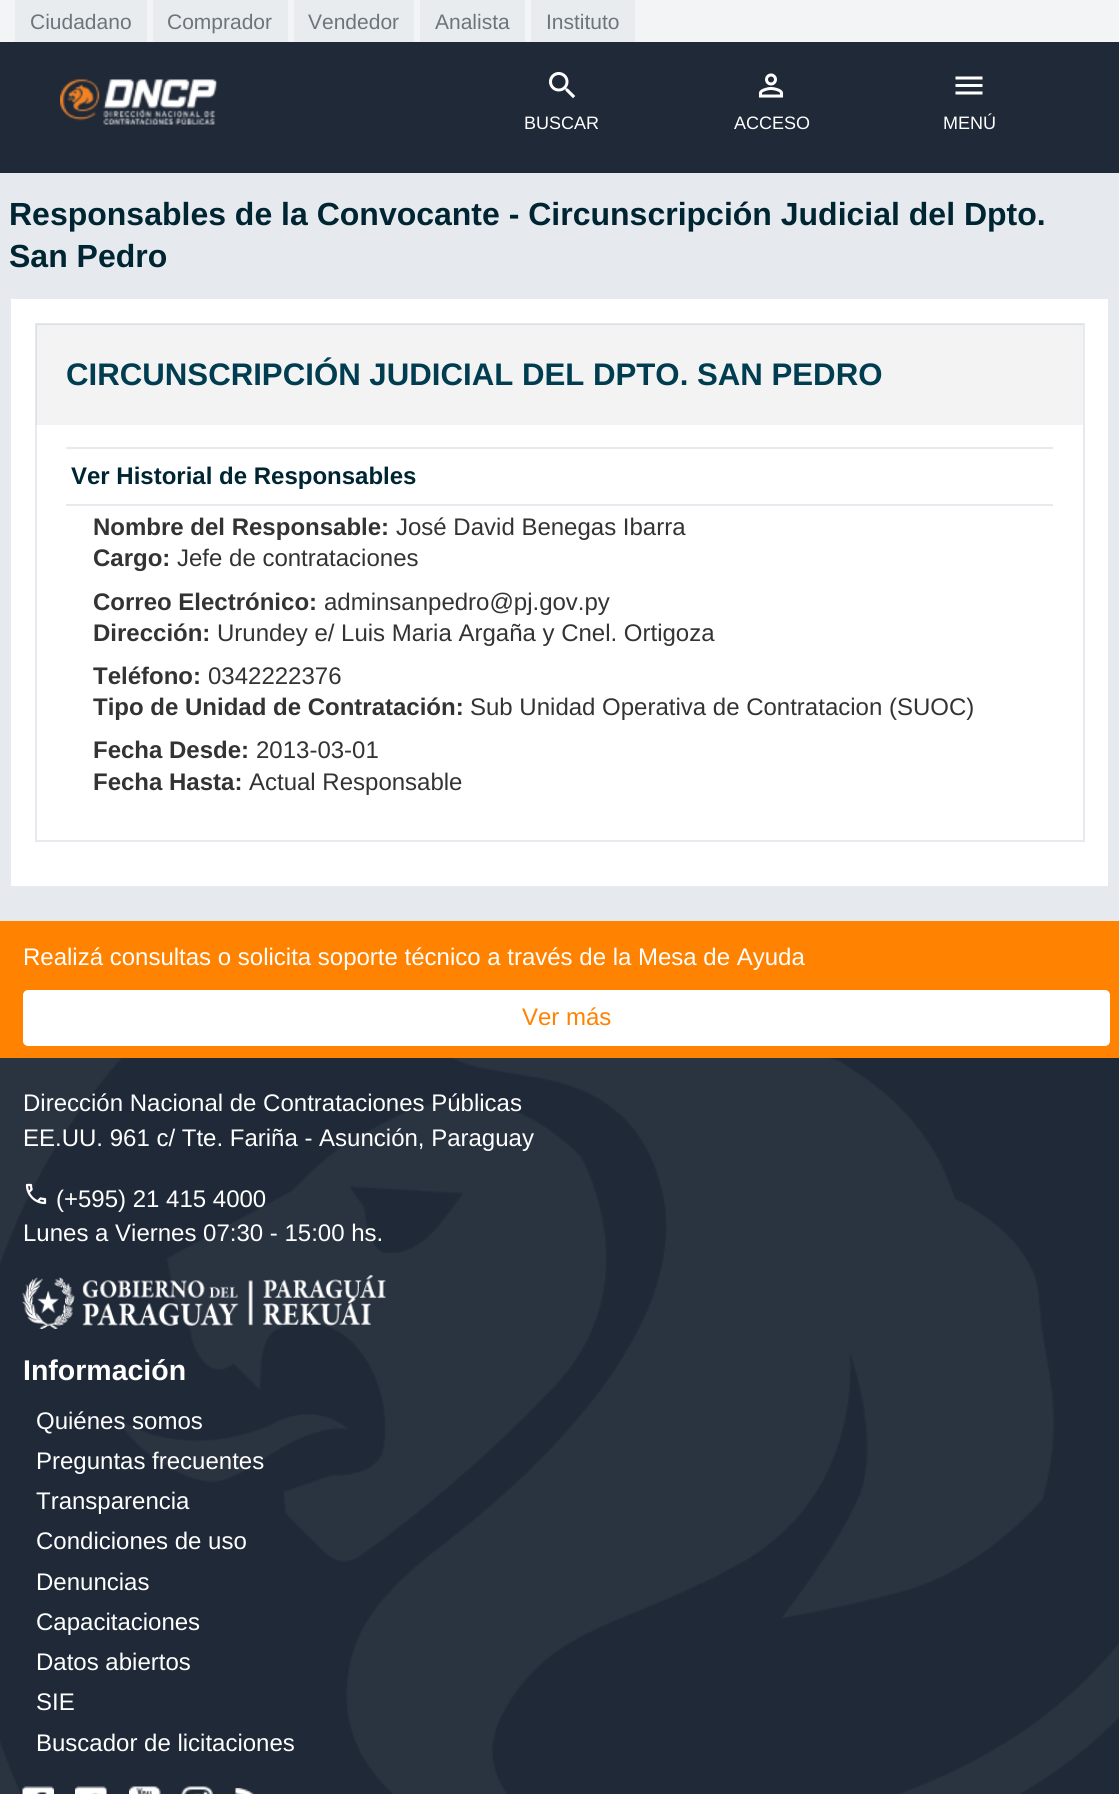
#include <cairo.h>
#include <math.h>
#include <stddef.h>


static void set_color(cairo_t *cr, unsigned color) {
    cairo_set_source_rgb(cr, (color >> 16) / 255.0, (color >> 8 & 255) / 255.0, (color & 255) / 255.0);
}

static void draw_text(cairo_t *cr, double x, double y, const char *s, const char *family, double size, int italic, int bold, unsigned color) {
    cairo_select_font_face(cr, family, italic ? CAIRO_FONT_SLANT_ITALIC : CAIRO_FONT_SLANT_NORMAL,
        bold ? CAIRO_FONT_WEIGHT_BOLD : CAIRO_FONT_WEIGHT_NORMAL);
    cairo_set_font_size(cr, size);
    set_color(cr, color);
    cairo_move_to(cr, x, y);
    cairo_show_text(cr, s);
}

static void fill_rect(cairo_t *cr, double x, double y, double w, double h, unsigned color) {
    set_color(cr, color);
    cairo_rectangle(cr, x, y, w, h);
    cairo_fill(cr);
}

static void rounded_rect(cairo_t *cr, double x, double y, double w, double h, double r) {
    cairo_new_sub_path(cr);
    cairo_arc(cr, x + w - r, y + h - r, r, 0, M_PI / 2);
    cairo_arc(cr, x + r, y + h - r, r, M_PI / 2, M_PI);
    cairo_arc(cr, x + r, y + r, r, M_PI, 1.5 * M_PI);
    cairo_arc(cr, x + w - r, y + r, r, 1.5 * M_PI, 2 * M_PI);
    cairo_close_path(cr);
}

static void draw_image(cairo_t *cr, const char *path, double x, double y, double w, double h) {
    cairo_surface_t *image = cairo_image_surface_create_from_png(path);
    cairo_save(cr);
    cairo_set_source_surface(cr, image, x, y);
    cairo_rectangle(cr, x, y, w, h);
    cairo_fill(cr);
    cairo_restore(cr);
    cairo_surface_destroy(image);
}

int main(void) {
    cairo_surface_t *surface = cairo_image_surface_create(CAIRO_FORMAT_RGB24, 1119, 1794);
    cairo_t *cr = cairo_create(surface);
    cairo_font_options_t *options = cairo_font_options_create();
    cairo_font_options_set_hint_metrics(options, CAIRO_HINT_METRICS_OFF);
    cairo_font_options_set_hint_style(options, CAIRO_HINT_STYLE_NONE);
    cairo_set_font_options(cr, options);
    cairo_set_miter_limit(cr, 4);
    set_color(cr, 0xF3F4F6);
    cairo_paint(cr);
    fill_rect(cr, 15, 0, 132, 42, 0xE9ECEF);
    draw_text(cr, 30, 29, "Ciudadano", "Liberation Sans", 21, 0, 0, 0x6C757D);
    fill_rect(cr, 153, 0, 135, 42, 0xE9ECEF);
    draw_text(cr, 167, 29, "Comprador", "Liberation Sans", 21, 0, 0, 0x6C757D);
    fill_rect(cr, 294, 0, 120, 42, 0xE9ECEF);
    draw_text(cr, 308, 29, "Vendedor", "Liberation Sans", 21, 0, 0, 0x6C757D);
    fill_rect(cr, 420, 0, 105, 42, 0xE9ECEF);
    draw_text(cr, 435, 29, "Analista", "Liberation Sans", 21, 0, 0, 0x6C757D);
    fill_rect(cr, 531, 0, 104, 42, 0xE9ECEF);
    draw_text(cr, 546, 29, "Instituto", "Liberation Sans", 21, 0, 0, 0x6C757D);
    fill_rect(cr, 0, 42, 1119, 131, 0x1F2937);
    draw_image(cr, "assets/img1.png", 60, 79, 158, 46);
    draw_image(cr, "assets/img2.png", 549, 72, 27, 27);
    draw_text(cr, 524, 129, "BUSCAR", "Liberation Sans", 18, 0, 0, 0xFFFFFF);
    draw_image(cr, "assets/img3.png", 758, 73, 26, 25);
    draw_text(cr, 734, 129, "ACCESO", "Liberation Sans", 18, 0, 0, 0xFFFFFF);
    draw_image(cr, "assets/img4.png", 955, 76, 28, 19);
    draw_text(cr, 943, 129, "MENÚ", "Liberation Sans", 18, 0, 0, 0xFFFFFF);
    fill_rect(cr, 0, 173, 1119, 748, 0xE6E9ED);
    draw_text(cr, 9, 225, "Responsables de la Convocante - Circunscripción Judicial del Dpto.", "Liberation Sans", 32, 0, 1, 0x002532);
    draw_text(cr, 9, 267, "San Pedro", "Liberation Sans", 32, 0, 1, 0x002532);
    fill_rect(cr, 11, 299, 1097, 587, 0xFFFFFF);
    cairo_rectangle(cr, 36, 324, 1048, 517);
    set_color(cr, 0xE6E9ED);
    cairo_stroke(cr);
    cairo_set_source_rgba(cr, 0, 0, 0, 0.05);
    cairo_rectangle(cr, 36, 324, 1047, 101);
    cairo_fill(cr);
    draw_text(cr, 66, 385, "CIRCUNSCRIPCIÓN JUDICIAL DEL DPTO. SAN PEDRO", "Liberation Sans", 31.2, 0, 1, 0x003D51);
    fill_rect(cr, 66, 447, 987, 2, 0xE6E9ED);
    fill_rect(cr, 66, 504, 987, 2, 0xE6E9ED);
    draw_text(cr, 71, 484, "Ver Historial de Responsables", "Liberation Sans", 24, 0, 1, 0x002532);
    draw_text(cr, 93, 535, "Nombre del Responsable:", "Liberation Sans", 24, 0, 1, 0x333333);
    draw_text(cr, 396, 535, "José David Benegas Ibarra", "Liberation Sans", 24, 0, 0, 0x333333);
    draw_text(cr, 93, 566, "Cargo:", "Liberation Sans", 24, 0, 1, 0x333333);
    draw_text(cr, 177, 566, "Jefe de contrataciones", "Liberation Sans", 24, 0, 0, 0x333333);
    draw_text(cr, 93, 610, "Correo Electrónico:", "Liberation Sans", 24, 0, 1, 0x333333);
    draw_text(cr, 324, 610, "adminsanpedro@pj.gov.py", "Liberation Sans", 24, 0, 0, 0x333333);
    draw_text(cr, 93, 641, "Dirección:", "Liberation Sans", 24, 0, 1, 0x333333);
    draw_text(cr, 217, 641, "Urundey e/ Luis Maria Argaña y Cnel. Ortigoza", "Liberation Sans", 24, 0, 0, 0x333333);
    draw_text(cr, 93, 684, "Teléfono:", "Liberation Sans", 24, 0, 1, 0x333333);
    draw_text(cr, 208, 684, "0342222376", "Liberation Sans", 24, 0, 0, 0x333333);
    draw_text(cr, 93, 715, "Tipo de Unidad de Contratación:", "Liberation Sans", 24, 0, 1, 0x333333);
    draw_text(cr, 470, 715, "Sub Unidad Operativa de Contratacion (SUOC)", "Liberation Sans", 24, 0, 0, 0x333333);
    draw_text(cr, 93, 758, "Fecha Desde:", "Liberation Sans", 24, 0, 1, 0x333333);
    draw_text(cr, 256, 758, "2013-03-01", "Liberation Sans", 24, 0, 0, 0x333333);
    draw_text(cr, 93, 790, "Fecha Hasta:", "Liberation Sans", 24, 0, 1, 0x333333);
    draw_text(cr, 249, 790, "Actual Responsable", "Liberation Sans", 24, 0, 0, 0x333333);
    fill_rect(cr, 0, 921, 1119, 137, 0xFF8200);
    draw_text(cr, 23, 965, "Realizá consultas o solicita soporte técnico a través de la Mesa de Ayuda", "Liberation Sans", 24, 0, 0, 0xFFFFFF);
    rounded_rect(cr, 24, 991, 1085, 54, 4);
    cairo_fill_preserve(cr);
    cairo_stroke(cr);
    draw_text(cr, 522, 1025, "Ver más", "Liberation Sans", 24, 0, 0, 0xFF8200);
    fill_rect(cr, 0, 1058, 1119, 736, 0x1F2937);
    draw_image(cr, "assets/img5.png", 0, 1057, 1119, 737);
    draw_text(cr, 23, 1111, "Dirección Nacional de Contrataciones Públicas", "Liberation Sans", 24, 0, 0, 0xFFFFFF);
    draw_text(cr, 23, 1146, "EE.UU. 961 c/ Tte. Fariña - Asunción, Paraguay", "Liberation Sans", 24, 0, 0, 0xFFFFFF);
    draw_image(cr, "assets/img6.png", 25, 1183, 22, 22);
    draw_text(cr, 56, 1207, "(+595) 21 415 4000", "Liberation Sans", 24, 0, 0, 0xFFFFFF);
    draw_text(cr, 23, 1241, "Lunes a Viernes 07:30 - 15:00 hs.", "Liberation Sans", 24, 0, 0, 0xFFFFFF);
    draw_image(cr, "assets/img7.png", 22, 1275, 364, 54);
    draw_text(cr, 23, 1380, "Información", "Liberation Sans", 28.5, 0, 1, 0xFFFFFF);
    draw_text(cr, 36, 1429, "Quiénes somos", "Liberation Sans", 24, 0, 0, 0xFFFFFF);
    draw_text(cr, 36, 1469, "Preguntas frecuentes", "Liberation Sans", 24, 0, 0, 0xFFFFFF);
    draw_text(cr, 36, 1509, "Transparencia", "Liberation Sans", 24, 0, 0, 0xFFFFFF);
    draw_text(cr, 36, 1549, "Condiciones de uso", "Liberation Sans", 24, 0, 0, 0xFFFFFF);
    draw_text(cr, 36, 1590, "Denuncias", "Liberation Sans", 24, 0, 0, 0xFFFFFF);
    draw_text(cr, 36, 1630, "Capacitaciones", "Liberation Sans", 24, 0, 0, 0xFFFFFF);
    draw_text(cr, 36, 1670, "Datos abiertos", "Liberation Sans", 24, 0, 0, 0xFFFFFF);
    draw_text(cr, 36, 1710, "SIE", "Liberation Sans", 24, 0, 0, 0xFFFFFF);
    draw_text(cr, 36, 1751, "Buscador de licitaciones", "Liberation Sans", 24, 0, 0, 0xFFFFFF);
    draw_image(cr, "assets/img8.png", 22, 1786, 32, 8);
    draw_image(cr, "assets/img9.png", 75, 1786, 32, 8);
    draw_image(cr, "assets/img10.png", 129, 1786, 32, 8);
    draw_image(cr, "assets/img11.png", 181, 1786, 32, 8);
    draw_image(cr, "assets/img12.png", 235, 1788, 19, 6);
    cairo_surface_write_to_png(surface, "output.png");
    cairo_font_options_destroy(options);
    cairo_destroy(cr);
    cairo_surface_destroy(surface);
    return 0;
}
